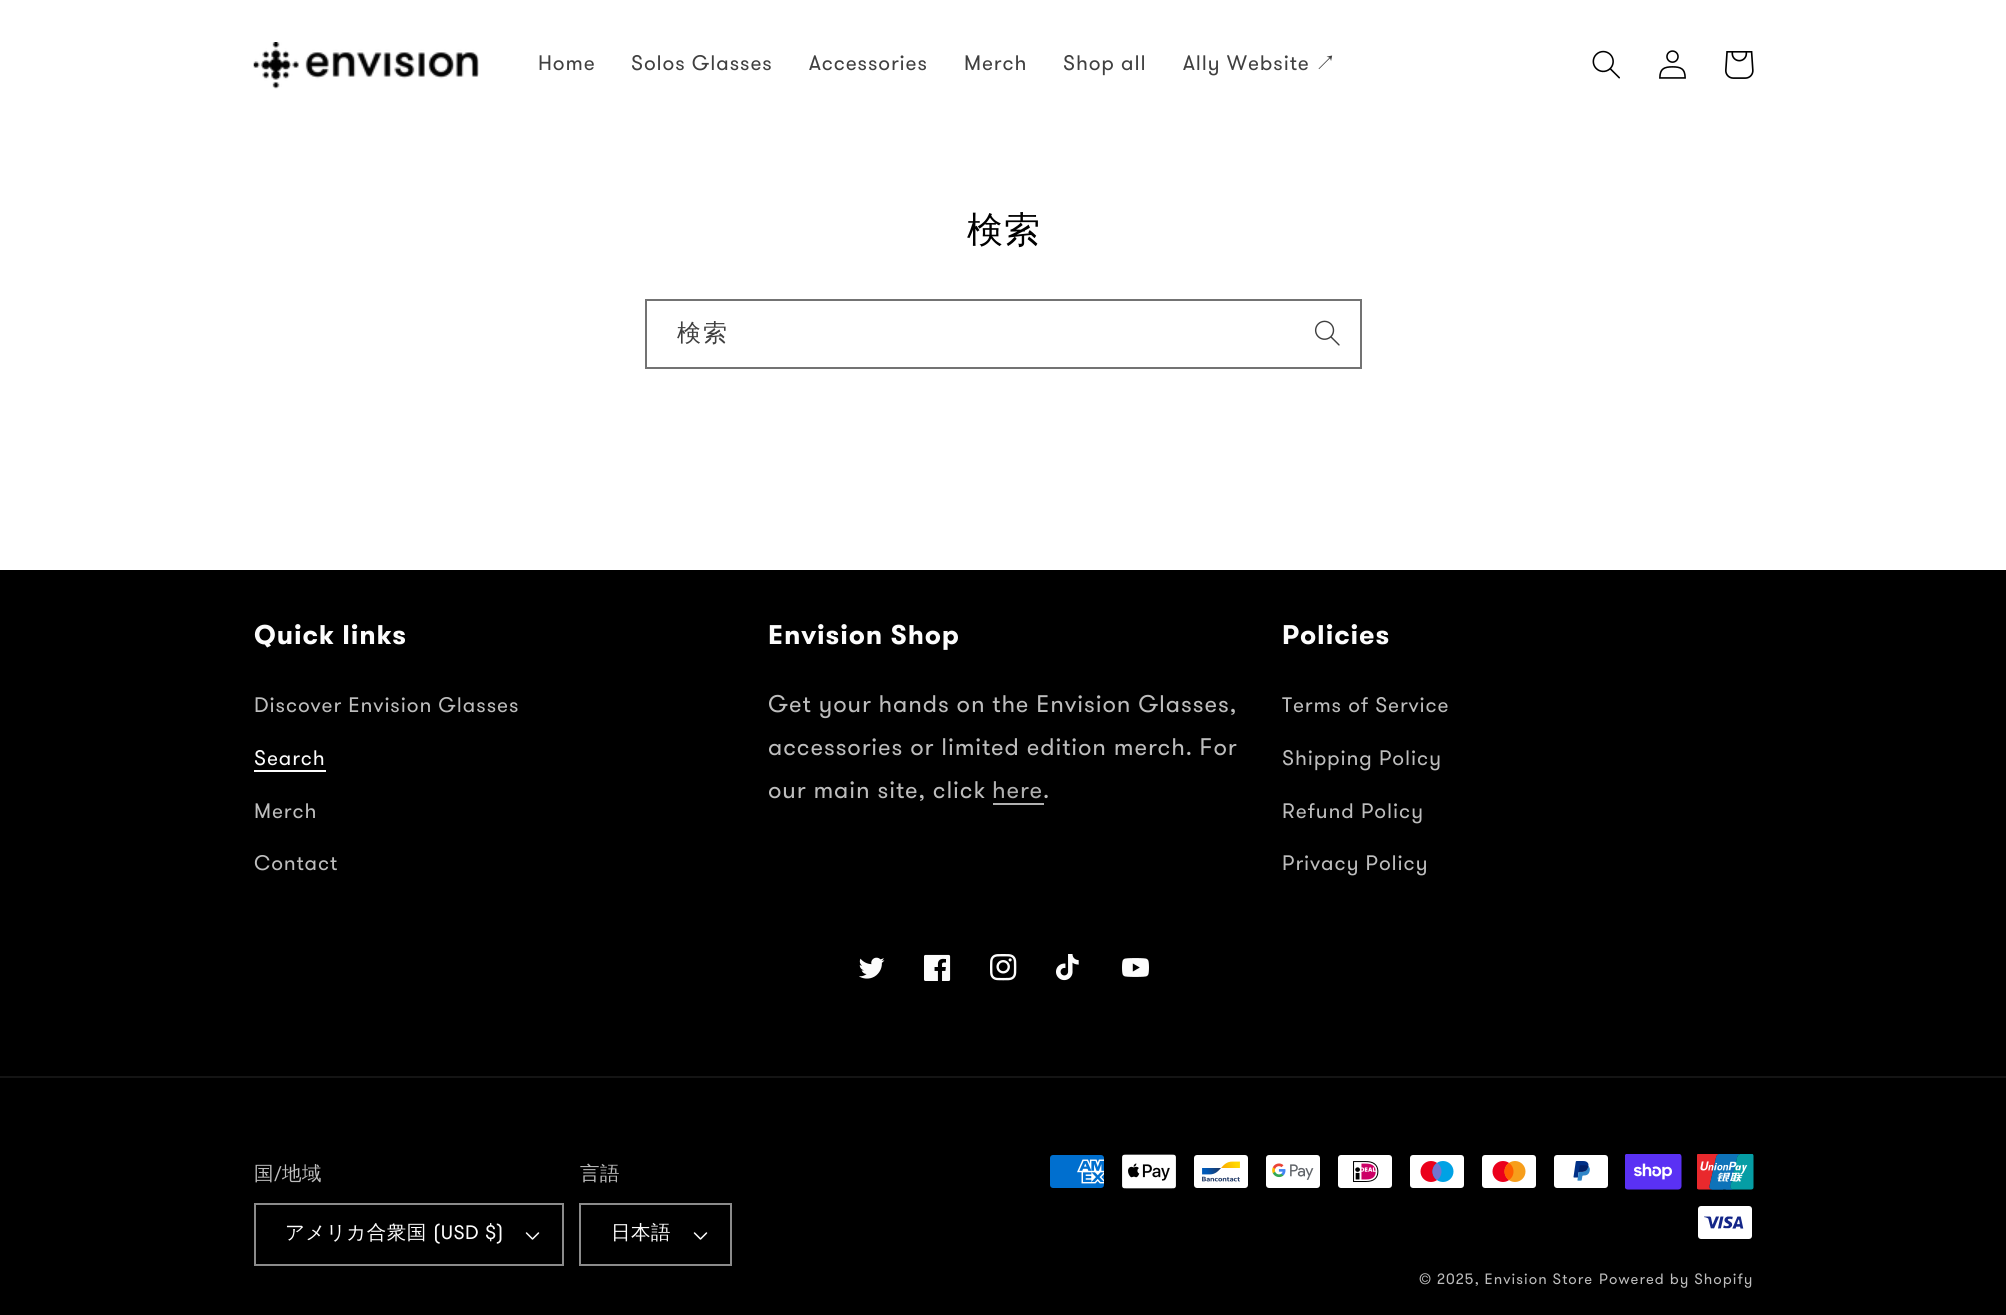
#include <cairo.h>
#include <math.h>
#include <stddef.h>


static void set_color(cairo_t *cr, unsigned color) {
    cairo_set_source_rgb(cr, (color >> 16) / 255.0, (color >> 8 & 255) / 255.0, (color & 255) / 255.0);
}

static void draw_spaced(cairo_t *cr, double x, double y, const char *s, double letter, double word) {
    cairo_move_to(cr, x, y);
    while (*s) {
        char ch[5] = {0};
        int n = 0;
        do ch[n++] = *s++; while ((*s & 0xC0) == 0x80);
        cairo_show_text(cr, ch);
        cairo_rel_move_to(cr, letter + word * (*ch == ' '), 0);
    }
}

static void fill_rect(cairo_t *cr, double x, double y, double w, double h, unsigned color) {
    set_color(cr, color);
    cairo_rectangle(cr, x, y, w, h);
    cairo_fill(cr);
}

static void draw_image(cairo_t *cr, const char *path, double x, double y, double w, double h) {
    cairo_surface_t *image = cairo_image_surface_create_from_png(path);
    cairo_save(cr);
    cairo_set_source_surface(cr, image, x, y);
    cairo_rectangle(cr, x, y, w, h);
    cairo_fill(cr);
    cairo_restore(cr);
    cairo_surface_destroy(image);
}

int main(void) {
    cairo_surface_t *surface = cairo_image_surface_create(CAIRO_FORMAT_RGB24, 2006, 1315);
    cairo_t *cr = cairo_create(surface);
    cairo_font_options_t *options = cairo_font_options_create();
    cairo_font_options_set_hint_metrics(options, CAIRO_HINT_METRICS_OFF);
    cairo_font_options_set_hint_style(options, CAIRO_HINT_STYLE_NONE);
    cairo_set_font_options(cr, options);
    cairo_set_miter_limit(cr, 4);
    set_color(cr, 0xFFFFFF);
    cairo_paint(cr);
    draw_image(cr, "assets/img1.png", 253, 42, 226, 47);
    cairo_select_font_face(cr, "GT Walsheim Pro", CAIRO_FONT_SLANT_NORMAL, CAIRO_FONT_WEIGHT_NORMAL);
    cairo_set_font_size(cr, 21);
    set_color(cr, 0x404040);
    draw_spaced(cr, 538, 70, "Home", 0.9, 0);
    draw_spaced(cr, 631, 70, "Solos Glasses", 0.9, 0);
    draw_spaced(cr, 809, 70, "Accessories", 0.9, 0);
    draw_spaced(cr, 964, 70, "Merch", 0.9, 0);
    draw_spaced(cr, 1063, 70, "Shop all", 0.9, 0);
    draw_spaced(cr, 1183, 70, "Ally Website", 0.9, 0);
    cairo_select_font_face(cr, "WenQuanYi Zen Hei Medium", CAIRO_FONT_SLANT_NORMAL, CAIRO_FONT_WEIGHT_NORMAL);
    draw_spaced(cr, 1315, 70, "↗", 0.9, 0);
    draw_image(cr, "assets/img2.png", 1592, 50, 28, 29);
    draw_image(cr, "assets/img3.png", 1659, 50, 27, 29);
    draw_image(cr, "assets/img4.png", 1725, 51, 29, 28);
    cairo_set_font_size(cr, 36);
    set_color(cr, 0x000000);
    draw_spaced(cr, 967, 242, "検索", 0.9, 0);
    draw_image(cr, "assets/img5.png", 1314, 320, 26, 26);
    cairo_rectangle(cr, 646, 300, 715, 68);
    set_color(cr, 0x737373);
    cairo_stroke(cr);
    cairo_set_font_size(cr, 24);
    set_color(cr, 0x404040);
    draw_spaced(cr, 677, 341, "検索", 2, 0);
    fill_rect(cr, 0, 570, 2006, 745, 0x000000);
    cairo_select_font_face(cr, "GT Walsheim Pro", CAIRO_FONT_SLANT_NORMAL, CAIRO_FONT_WEIGHT_BOLD);
    cairo_set_font_size(cr, 27);
    set_color(cr, 0xFCFCFC);
    draw_spaced(cr, 254, 644, "Quick links", 0.9, 0);
    cairo_select_font_face(cr, "GT Walsheim Pro", CAIRO_FONT_SLANT_NORMAL, CAIRO_FONT_WEIGHT_NORMAL);
    cairo_set_font_size(cr, 21);
    set_color(cr, 0xBDBDBD);
    draw_spaced(cr, 254, 712, "Discover Envision Glasses", 0.9, 0);
    set_color(cr, 0xFCFCFC);
    draw_spaced(cr, 254, 765, "Search", 0.9, 0);
    fill_rect(cr, 254, 770, 72, 2, 0xFCFCFC);
    set_color(cr, 0xBDBDBD);
    draw_spaced(cr, 254, 818, "Merch", 0.9, 0);
    draw_spaced(cr, 254, 870, "Contact", 0.9, 0);
    cairo_select_font_face(cr, "GT Walsheim Pro", CAIRO_FONT_SLANT_NORMAL, CAIRO_FONT_WEIGHT_BOLD);
    cairo_set_font_size(cr, 27);
    set_color(cr, 0xFCFCFC);
    draw_spaced(cr, 768, 644, "Envision Shop", 0.9, 0);
    cairo_select_font_face(cr, "GT Walsheim Pro", CAIRO_FONT_SLANT_NORMAL, CAIRO_FONT_WEIGHT_NORMAL);
    cairo_set_font_size(cr, 24);
    set_color(cr, 0xBDBDBD);
    draw_spaced(cr, 768, 712, "Get your hands on the Envision Glasses,", 0.9, 0);
    draw_spaced(cr, 768, 755, "accessories or limited edition merch. For", 0.9, 0);
    draw_spaced(cr, 768, 798, "our main site, click", 0.9, 0);
    set_color(cr, 0xB0B0B0);
    draw_spaced(cr, 992, 798, "here", 0.9, 0);
    fill_rect(cr, 993, 803, 51, 2, 0xB0B0B0);
    set_color(cr, 0xBDBDBD);
    draw_spaced(cr, 1043, 798, ".", 0.9, 0);
    cairo_select_font_face(cr, "GT Walsheim Pro", CAIRO_FONT_SLANT_NORMAL, CAIRO_FONT_WEIGHT_BOLD);
    cairo_set_font_size(cr, 27);
    set_color(cr, 0xFCFCFC);
    draw_spaced(cr, 1282, 644, "Policies", 0.9, 0);
    cairo_select_font_face(cr, "GT Walsheim Pro", CAIRO_FONT_SLANT_NORMAL, CAIRO_FONT_WEIGHT_NORMAL);
    cairo_set_font_size(cr, 21);
    set_color(cr, 0xBDBDBD);
    draw_spaced(cr, 1282, 712, "Terms of Service", 0.9, 0);
    draw_spaced(cr, 1282, 765, "Shipping Policy", 0.9, 0);
    draw_spaced(cr, 1282, 818, "Refund Policy", 0.9, 0);
    draw_spaced(cr, 1282, 870, "Privacy Policy", 0.9, 0);
    draw_image(cr, "assets/img6.png", 859, 957, 26, 22);
    draw_image(cr, "assets/img7.png", 924, 954, 27, 27);
    draw_image(cr, "assets/img8.png", 990, 954, 27, 27);
    draw_image(cr, "assets/img9.png", 1056, 954, 23, 27);
    draw_image(cr, "assets/img10.png", 1122, 958, 27, 19);
    fill_rect(cr, 0, 1076, 2006, 2, 0x141414);
    cairo_select_font_face(cr, "WenQuanYi Zen Hei Medium", CAIRO_FONT_SLANT_NORMAL, CAIRO_FONT_WEIGHT_NORMAL);
    cairo_set_font_size(cr, 19.5);
    set_color(cr, 0xBDBDBD);
    draw_spaced(cr, 254, 1180, "国", 0.5, 0);
    cairo_select_font_face(cr, "Roboto", CAIRO_FONT_SLANT_NORMAL, CAIRO_FONT_WEIGHT_NORMAL);
    draw_spaced(cr, 274, 1180, "/", 0.5, 0);
    cairo_select_font_face(cr, "WenQuanYi Zen Hei Medium", CAIRO_FONT_SLANT_NORMAL, CAIRO_FONT_WEIGHT_NORMAL);
    draw_spaced(cr, 282, 1180, "地域", 0.5, 0);
    draw_image(cr, "assets/img11.png", 525, 1232, 15, 8);
    cairo_rectangle(cr, 255, 1204, 308, 61);
    set_color(cr, 0x8B8B8B);
    cairo_stroke(cr);
    set_color(cr, 0xFCFCFC);
    draw_spaced(cr, 285, 1239, "アメリカ合衆国", 0.5, 0);
    cairo_select_font_face(cr, "GT Walsheim Pro", CAIRO_FONT_SLANT_NORMAL, CAIRO_FONT_WEIGHT_NORMAL);
    draw_spaced(cr, 433, 1239, "(USD $)", 0.5, 0);
    cairo_select_font_face(cr, "WenQuanYi Zen Hei Medium", CAIRO_FONT_SLANT_NORMAL, CAIRO_FONT_WEIGHT_NORMAL);
    set_color(cr, 0xBDBDBD);
    draw_spaced(cr, 580, 1180, "言語", 0.5, 0);
    draw_image(cr, "assets/img11.png", 693, 1232, 15, 8);
    cairo_rectangle(cr, 580, 1204, 151, 61);
    set_color(cr, 0x8B8B8B);
    cairo_stroke(cr);
    set_color(cr, 0xFCFCFC);
    draw_spaced(cr, 611, 1239, "日本語", 0.5, 0);
    draw_image(cr, "assets/img12.png", 1050, 1155, 54, 33);
    draw_image(cr, "assets/img13.png", 1122, 1154, 54, 35);
    draw_image(cr, "assets/img14.png", 1194, 1155, 54, 33);
    draw_image(cr, "assets/img15.png", 1266, 1155, 54, 33);
    draw_image(cr, "assets/img16.png", 1338, 1155, 54, 33);
    draw_image(cr, "assets/img17.png", 1410, 1155, 54, 33);
    draw_image(cr, "assets/img18.png", 1482, 1155, 54, 33);
    draw_image(cr, "assets/img19.png", 1554, 1155, 54, 33);
    draw_image(cr, "assets/img20.png", 1625, 1154, 57, 36);
    draw_image(cr, "assets/img21.png", 1697, 1154, 57, 36);
    draw_image(cr, "assets/img22.png", 1698, 1206, 54, 33);
    cairo_select_font_face(cr, "GT Walsheim Pro", CAIRO_FONT_SLANT_NORMAL, CAIRO_FONT_WEIGHT_NORMAL);
    cairo_set_font_size(cr, 15);
    set_color(cr, 0xBDBDBD);
    draw_spaced(cr, 1419, 1284, "© 2025, Envision Store", 1.05, 0);
    draw_spaced(cr, 1599, 1284, "Powered by Shopify", 1.05, 0);
    cairo_surface_write_to_png(surface, "output.png");
    cairo_font_options_destroy(options);
    cairo_destroy(cr);
    cairo_surface_destroy(surface);
    return 0;
}
